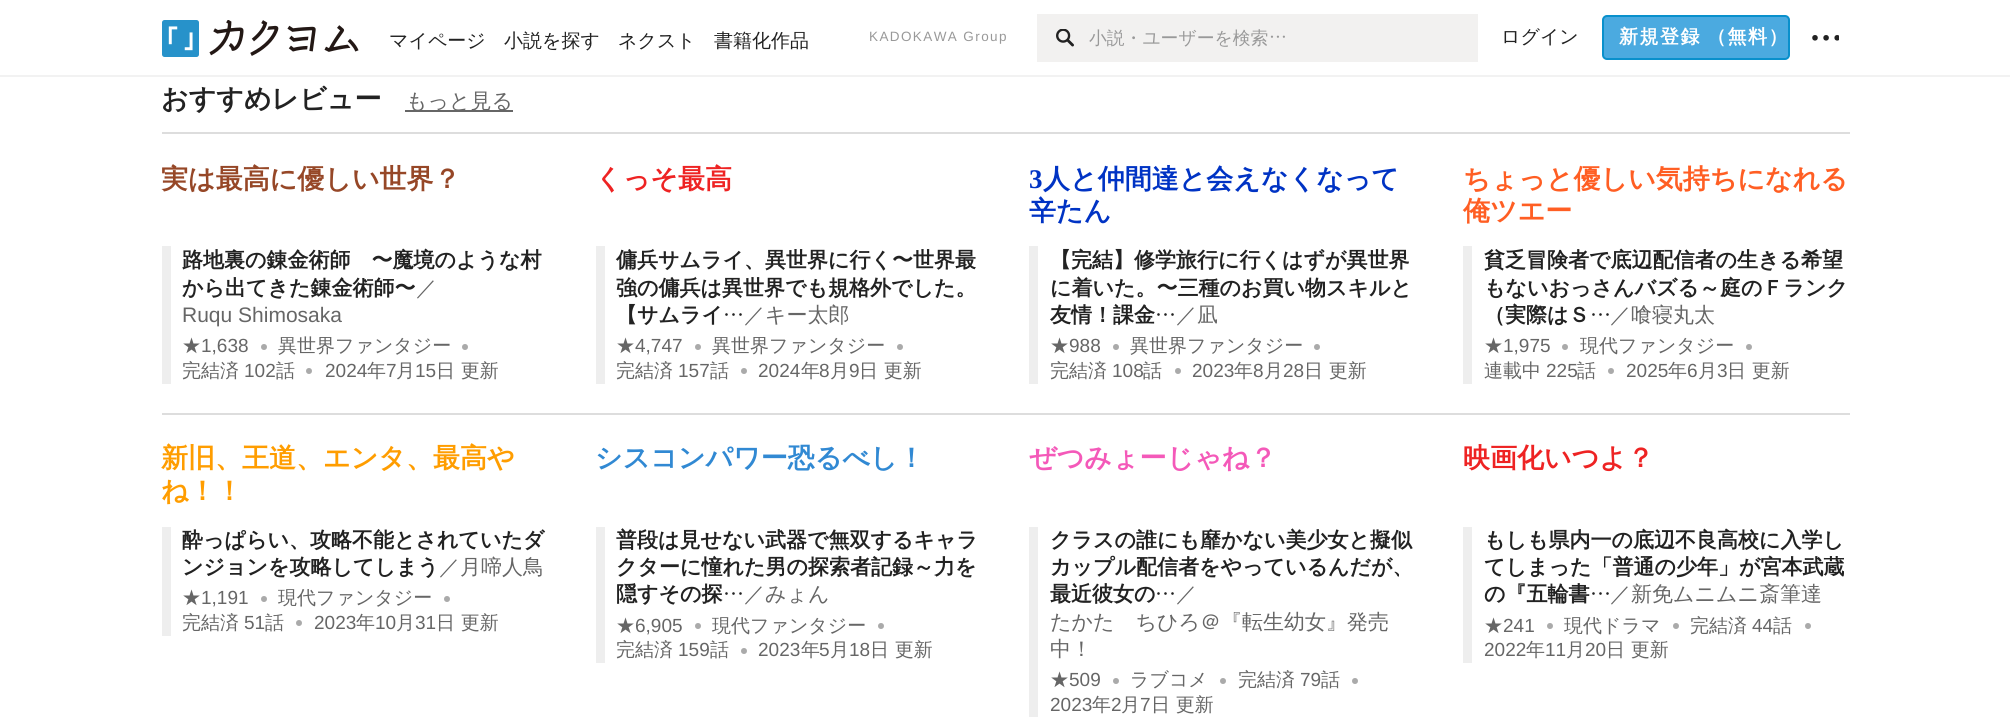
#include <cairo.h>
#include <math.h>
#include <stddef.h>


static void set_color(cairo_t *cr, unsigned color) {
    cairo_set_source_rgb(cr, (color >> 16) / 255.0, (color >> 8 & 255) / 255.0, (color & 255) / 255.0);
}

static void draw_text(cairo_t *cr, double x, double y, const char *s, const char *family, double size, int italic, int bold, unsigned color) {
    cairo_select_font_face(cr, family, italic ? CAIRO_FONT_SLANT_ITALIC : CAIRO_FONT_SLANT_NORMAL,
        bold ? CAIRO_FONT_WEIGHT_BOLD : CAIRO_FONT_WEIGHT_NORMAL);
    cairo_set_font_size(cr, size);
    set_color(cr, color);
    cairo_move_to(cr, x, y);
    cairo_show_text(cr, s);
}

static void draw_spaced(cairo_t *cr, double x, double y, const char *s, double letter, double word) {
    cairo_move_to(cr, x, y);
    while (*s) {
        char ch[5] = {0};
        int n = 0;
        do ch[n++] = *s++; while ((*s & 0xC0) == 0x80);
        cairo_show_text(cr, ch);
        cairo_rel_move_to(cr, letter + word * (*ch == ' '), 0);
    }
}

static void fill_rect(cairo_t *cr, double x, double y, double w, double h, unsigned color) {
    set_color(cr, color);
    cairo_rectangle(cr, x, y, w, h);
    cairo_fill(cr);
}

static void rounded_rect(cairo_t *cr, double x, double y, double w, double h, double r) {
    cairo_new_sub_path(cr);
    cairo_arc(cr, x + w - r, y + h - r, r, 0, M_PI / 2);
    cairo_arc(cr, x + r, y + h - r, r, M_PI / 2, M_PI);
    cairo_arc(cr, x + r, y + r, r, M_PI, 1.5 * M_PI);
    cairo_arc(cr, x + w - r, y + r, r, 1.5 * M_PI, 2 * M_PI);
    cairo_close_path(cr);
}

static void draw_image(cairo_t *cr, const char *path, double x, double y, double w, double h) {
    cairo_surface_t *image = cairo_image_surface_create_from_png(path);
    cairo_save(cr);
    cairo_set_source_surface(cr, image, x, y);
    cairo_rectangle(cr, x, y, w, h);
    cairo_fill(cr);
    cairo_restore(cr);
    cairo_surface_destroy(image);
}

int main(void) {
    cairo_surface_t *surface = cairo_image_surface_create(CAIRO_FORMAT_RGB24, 2010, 725);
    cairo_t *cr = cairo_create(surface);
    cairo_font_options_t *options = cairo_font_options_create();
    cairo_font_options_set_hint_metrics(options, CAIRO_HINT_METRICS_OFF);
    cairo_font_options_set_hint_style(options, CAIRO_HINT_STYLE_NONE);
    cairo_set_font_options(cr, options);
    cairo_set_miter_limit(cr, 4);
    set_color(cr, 0xFFFFFF);
    cairo_paint(cr);
    fill_rect(cr, 0, 75, 2010, 2, 0xF2F2F2);
    draw_image(cr, "assets/img1.png", 162, 20, 197, 37);
    draw_text(cr, 389, 47, "マイページ", "WenQuanYi Zen Hei Medium", 19, 0, 0, 0x222222);
    draw_text(cr, 504, 47, "小説を探す", "WenQuanYi Zen Hei Medium", 19, 0, 0, 0x222222);
    draw_text(cr, 618, 47, "ネクスト", "WenQuanYi Zen Hei Medium", 19, 0, 0, 0x222222);
    draw_text(cr, 714, 47, "書籍化作品", "WenQuanYi Zen Hei Medium", 19, 0, 0, 0x222222);
    cairo_select_font_face(cr, "Liberation Sans", CAIRO_FONT_SLANT_NORMAL, CAIRO_FONT_WEIGHT_NORMAL);
    cairo_set_font_size(cr, 13.5);
    set_color(cr, 0x999999);
    draw_spaced(cr, 869, 41, "KADOKAWA Group", 1.4, 0);
    fill_rect(cr, 1037, 14, 441, 48, 0xF2F1F0);
    draw_image(cr, "assets/img2.png", 1056, 29, 18, 18);
    draw_text(cr, 1089, 44, "小説・ユーザーを検索", "WenQuanYi Zen Hei Medium", 17.8, 0, 0, 0x999999);
    draw_image(cr, "assets/img3.png", 1270, 35, 15, 3);
    draw_text(cr, 1501, 43, "ログイン", "WenQuanYi Zen Hei Medium", 19, 0, 0, 0x222222);
    set_color(cr, 0x4BAAE0);
    rounded_rect(cr, 1603, 16, 186, 43, 4);
    cairo_fill_preserve(cr);
    set_color(cr, 0x0990CC);
    cairo_stroke(cr);
    cairo_select_font_face(cr, "WenQuanYi Zen Hei", CAIRO_FONT_SLANT_NORMAL, CAIRO_FONT_WEIGHT_BOLD);
    set_color(cr, 0xFFFFFF);
    draw_spaced(cr, 1619, 43, "新規登録", 1.5, 0);
    draw_spaced(cr, 1707, 43, "（無料）", 1.5, 0);
    set_color(cr, 0x222222);
    cairo_new_path(cr);
    cairo_arc(cr, 1815, 37.8, 2.8, 0, 2 * M_PI);
    cairo_fill(cr);
    cairo_arc(cr, 1826.1, 37.8, 2.8, 0, 2 * M_PI);
    cairo_fill(cr);
    cairo_save(cr);
    cairo_rectangle(cr, 1812, 24, 27, 27);
    cairo_clip(cr);
    cairo_arc(cr, 1837.2, 37.8, 2.8, 0, 2 * M_PI);
    cairo_fill(cr);
    cairo_restore(cr);
    fill_rect(cr, 162, 132, 1688, 2, 0xDDDDDD);
    draw_text(cr, 161, 108, "おすすめレビュー", "WenQuanYi Zen Hei", 27, 0, 1, 0x222222);
    fill_rect(cr, 405, 110, 108, 2, 0x666666);
    draw_text(cr, 406, 108, "もっと見る", "WenQuanYi Zen Hei Medium", 21, 0, 0, 0x666666);
    draw_text(cr, 161, 188, "実は最高に優しい世界？", "WenQuanYi Zen Hei", 27, 0, 1, 0x964727);
    fill_rect(cr, 162, 246, 9, 138, 0xEEEEEE);
    draw_text(cr, 182, 267, "路地裏の錬金術師　〜魔境のような村", "WenQuanYi Zen Hei", 21, 0, 1, 0x222222);
    draw_text(cr, 182, 295, "から出てきた錬金術師〜", "WenQuanYi Zen Hei", 21, 0, 1, 0x222222);
    draw_text(cr, 416, 295, "／", "WenQuanYi Zen Hei Medium", 21, 0, 0, 0x666666);
    draw_text(cr, 182, 322, "Ruqu Shimosaka", "Liberation Sans", 21, 0, 0, 0x666666);
    draw_text(cr, 182, 352, "★", "WenQuanYi Zen Hei Medium", 19, 0, 0, 0x666666);
    draw_text(cr, 201, 352, "1,638", "Liberation Sans", 19, 0, 0, 0x666666);
    set_color(cr, 0xAAAAAA);
    cairo_new_path(cr);
    cairo_arc(cr, 264, 347, 3, 0, 2 * M_PI);
    cairo_fill(cr);
    draw_text(cr, 278, 352, "異世界ファンタジー", "WenQuanYi Zen Hei Medium", 19, 0, 0, 0x666666);
    set_color(cr, 0xAAAAAA);
    cairo_new_path(cr);
    cairo_arc(cr, 465, 347, 3, 0, 2 * M_PI);
    cairo_fill(cr);
    draw_text(cr, 182, 377, "完結済", "WenQuanYi Zen Hei Medium", 19, 0, 0, 0x666666);
    draw_text(cr, 244, 377, "102", "Liberation Sans", 19, 0, 0, 0x666666);
    draw_text(cr, 276, 377, "話", "WenQuanYi Zen Hei Medium", 19, 0, 0, 0x666666);
    set_color(cr, 0xAAAAAA);
    cairo_new_path(cr);
    cairo_arc(cr, 309, 371, 3, 0, 2 * M_PI);
    cairo_fill(cr);
    draw_text(cr, 325, 377, "2024", "Liberation Sans", 19, 0, 0, 0x666666);
    draw_text(cr, 367, 377, "年", "WenQuanYi Zen Hei Medium", 19, 0, 0, 0x666666);
    draw_text(cr, 386, 377, "7", "Liberation Sans", 19, 0, 0, 0x666666);
    draw_text(cr, 396, 377, "月", "WenQuanYi Zen Hei Medium", 19, 0, 0, 0x666666);
    draw_text(cr, 415, 377, "15", "Liberation Sans", 19, 0, 0, 0x666666);
    draw_text(cr, 436, 377, "日 更新", "WenQuanYi Zen Hei Medium", 19, 0, 0, 0x666666);
    fill_rect(cr, 162, 413, 1688, 2, 0xDDDDDD);
    draw_text(cr, 595, 188, "くっそ最高", "WenQuanYi Zen Hei", 27, 0, 1, 0xEE2323);
    fill_rect(cr, 596, 246, 9, 138, 0xEEEEEE);
    draw_text(cr, 616, 267, "傭兵サムライ、異世界に行く〜世界最", "WenQuanYi Zen Hei", 21, 0, 1, 0x222222);
    draw_text(cr, 616, 295, "強の傭兵は異世界でも規格外でした。", "WenQuanYi Zen Hei", 21, 0, 1, 0x222222);
    draw_text(cr, 616, 322, "【サムライ", "WenQuanYi Zen Hei", 21, 0, 1, 0x222222);
    draw_image(cr, "assets/img4.png", 725, 313, 17, 3);
    draw_text(cr, 744, 322, "／キー太郎", "WenQuanYi Zen Hei Medium", 21, 0, 0, 0x666666);
    draw_text(cr, 616, 352, "★", "WenQuanYi Zen Hei Medium", 19, 0, 0, 0x666666);
    draw_text(cr, 635, 352, "4,747", "Liberation Sans", 19, 0, 0, 0x666666);
    set_color(cr, 0xAAAAAA);
    cairo_new_path(cr);
    cairo_arc(cr, 698, 347, 3, 0, 2 * M_PI);
    cairo_fill(cr);
    draw_text(cr, 712, 352, "異世界ファンタジー", "WenQuanYi Zen Hei Medium", 19, 0, 0, 0x666666);
    set_color(cr, 0xAAAAAA);
    cairo_new_path(cr);
    cairo_arc(cr, 900, 347, 3, 0, 2 * M_PI);
    cairo_fill(cr);
    draw_text(cr, 616, 377, "完結済", "WenQuanYi Zen Hei Medium", 19, 0, 0, 0x666666);
    draw_text(cr, 678, 377, "157", "Liberation Sans", 19, 0, 0, 0x666666);
    draw_text(cr, 710, 377, "話", "WenQuanYi Zen Hei Medium", 19, 0, 0, 0x666666);
    set_color(cr, 0xAAAAAA);
    cairo_new_path(cr);
    cairo_arc(cr, 744, 371, 3, 0, 2 * M_PI);
    cairo_fill(cr);
    draw_text(cr, 758, 377, "2024", "Liberation Sans", 19, 0, 0, 0x666666);
    draw_text(cr, 801, 377, "年", "WenQuanYi Zen Hei Medium", 19, 0, 0, 0x666666);
    draw_text(cr, 819, 377, "8", "Liberation Sans", 19, 0, 0, 0x666666);
    draw_text(cr, 830, 377, "月", "WenQuanYi Zen Hei Medium", 19, 0, 0, 0x666666);
    draw_text(cr, 849, 377, "9", "Liberation Sans", 19, 0, 0, 0x666666);
    draw_text(cr, 859, 377, "日 更新", "WenQuanYi Zen Hei Medium", 19, 0, 0, 0x666666);
    draw_text(cr, 1029, 188, "3", "Liberation Serif", 27, 0, 1, 0x0033C4);
    draw_text(cr, 1043, 188, "人と仲間達と会えなくなって", "WenQuanYi Zen Hei", 27, 0, 1, 0x0033C4);
    draw_text(cr, 1029, 220, "辛たん", "WenQuanYi Zen Hei", 27, 0, 1, 0x0033C4);
    fill_rect(cr, 1029, 246, 9, 138, 0xEEEEEE);
    draw_text(cr, 1050, 267, "【完結】修学旅行に行くはずが異世界", "WenQuanYi Zen Hei", 21, 0, 1, 0x222222);
    draw_text(cr, 1050, 295, "に着いた。〜三種のお買い物スキルと", "WenQuanYi Zen Hei", 21, 0, 1, 0x222222);
    draw_text(cr, 1050, 322, "友情！課金", "WenQuanYi Zen Hei", 21, 0, 1, 0x222222);
    draw_image(cr, "assets/img4.png", 1157, 313, 17, 3);
    draw_text(cr, 1176, 322, "／凪", "WenQuanYi Zen Hei Medium", 21, 0, 0, 0x666666);
    draw_text(cr, 1050, 352, "★", "WenQuanYi Zen Hei Medium", 19, 0, 0, 0x666666);
    draw_text(cr, 1069, 352, "988", "Liberation Sans", 19, 0, 0, 0x666666);
    set_color(cr, 0xAAAAAA);
    cairo_new_path(cr);
    cairo_arc(cr, 1116, 347, 3, 0, 2 * M_PI);
    cairo_fill(cr);
    draw_text(cr, 1130, 352, "異世界ファンタジー", "WenQuanYi Zen Hei Medium", 19, 0, 0, 0x666666);
    set_color(cr, 0xAAAAAA);
    cairo_new_path(cr);
    cairo_arc(cr, 1317, 347, 3, 0, 2 * M_PI);
    cairo_fill(cr);
    draw_text(cr, 1050, 377, "完結済", "WenQuanYi Zen Hei Medium", 19, 0, 0, 0x666666);
    draw_text(cr, 1112, 377, "108", "Liberation Sans", 19, 0, 0, 0x666666);
    draw_text(cr, 1143, 377, "話", "WenQuanYi Zen Hei Medium", 19, 0, 0, 0x666666);
    set_color(cr, 0xAAAAAA);
    cairo_new_path(cr);
    cairo_arc(cr, 1178, 371, 3, 0, 2 * M_PI);
    cairo_fill(cr);
    draw_text(cr, 1192, 377, "2023", "Liberation Sans", 19, 0, 0, 0x666666);
    draw_text(cr, 1234, 377, "年", "WenQuanYi Zen Hei Medium", 19, 0, 0, 0x666666);
    draw_text(cr, 1253, 377, "8", "Liberation Sans", 19, 0, 0, 0x666666);
    draw_text(cr, 1264, 377, "月", "WenQuanYi Zen Hei Medium", 19, 0, 0, 0x666666);
    draw_text(cr, 1283, 377, "28", "Liberation Sans", 19, 0, 0, 0x666666);
    draw_text(cr, 1304, 377, "日 更新", "WenQuanYi Zen Hei Medium", 19, 0, 0, 0x666666);
    draw_text(cr, 1463, 188, "ちょっと優しい気持ちになれる", "WenQuanYi Zen Hei", 27, 0, 1, 0xFF5E23);
    draw_text(cr, 1463, 220, "俺ツエー", "WenQuanYi Zen Hei", 27, 0, 1, 0xFF5E23);
    fill_rect(cr, 1463, 246, 9, 138, 0xEEEEEE);
    draw_text(cr, 1484, 267, "貧乏冒険者で底辺配信者の生きる希望", "WenQuanYi Zen Hei", 21, 0, 1, 0x222222);
    draw_text(cr, 1484, 295, "もないおっさんバズる～庭のＦランク", "WenQuanYi Zen Hei", 21, 0, 1, 0x222222);
    draw_text(cr, 1484, 322, "（実際はＳ", "WenQuanYi Zen Hei", 21, 0, 1, 0x222222);
    draw_image(cr, "assets/img4.png", 1592, 313, 17, 3);
    draw_text(cr, 1610, 322, "／喰寝丸太", "WenQuanYi Zen Hei Medium", 21, 0, 0, 0x666666);
    draw_text(cr, 1484, 352, "★", "WenQuanYi Zen Hei Medium", 19, 0, 0, 0x666666);
    draw_text(cr, 1503, 352, "1,975", "Liberation Sans", 19, 0, 0, 0x666666);
    set_color(cr, 0xAAAAAA);
    cairo_new_path(cr);
    cairo_arc(cr, 1565, 347, 3, 0, 2 * M_PI);
    cairo_fill(cr);
    draw_text(cr, 1580, 352, "現代ファンタジー", "WenQuanYi Zen Hei Medium", 19, 0, 0, 0x666666);
    set_color(cr, 0xAAAAAA);
    cairo_new_path(cr);
    cairo_arc(cr, 1749, 347, 3, 0, 2 * M_PI);
    cairo_fill(cr);
    draw_text(cr, 1484, 377, "連載中", "WenQuanYi Zen Hei Medium", 19, 0, 0, 0x666666);
    draw_text(cr, 1546, 377, "225", "Liberation Sans", 19, 0, 0, 0x666666);
    draw_text(cr, 1577, 377, "話", "WenQuanYi Zen Hei Medium", 19, 0, 0, 0x666666);
    set_color(cr, 0xAAAAAA);
    cairo_new_path(cr);
    cairo_arc(cr, 1611, 371, 3, 0, 2 * M_PI);
    cairo_fill(cr);
    draw_text(cr, 1626, 377, "2025", "Liberation Sans", 19, 0, 0, 0x666666);
    draw_text(cr, 1668, 377, "年", "WenQuanYi Zen Hei Medium", 19, 0, 0, 0x666666);
    draw_text(cr, 1687, 377, "6", "Liberation Sans", 19, 0, 0, 0x666666);
    draw_text(cr, 1698, 377, "月", "WenQuanYi Zen Hei Medium", 19, 0, 0, 0x666666);
    draw_text(cr, 1717, 377, "3", "Liberation Sans", 19, 0, 0, 0x666666);
    draw_text(cr, 1727, 377, "日 更新", "WenQuanYi Zen Hei Medium", 19, 0, 0, 0x666666);
    draw_text(cr, 161, 467, "新旧、王道、エンタ、最高や", "WenQuanYi Zen Hei", 27, 0, 1, 0xFF9D00);
    draw_text(cr, 161, 500, "ね！！", "WenQuanYi Zen Hei", 27, 0, 1, 0xFF9D00);
    fill_rect(cr, 162, 527, 9, 109, 0xEEEEEE);
    draw_text(cr, 182, 547, "酔っぱらい、攻略不能とされていたダ", "WenQuanYi Zen Hei", 21, 0, 1, 0x222222);
    draw_text(cr, 182, 574, "ンジョンを攻略してしまう", "WenQuanYi Zen Hei", 21, 0, 1, 0x222222);
    draw_text(cr, 439, 574, "／月啼人鳥", "WenQuanYi Zen Hei Medium", 21, 0, 0, 0x666666);
    draw_text(cr, 182, 604, "★", "WenQuanYi Zen Hei Medium", 19, 0, 0, 0x666666);
    draw_text(cr, 201, 604, "1,191", "Liberation Sans", 19, 0, 0, 0x666666);
    set_color(cr, 0xAAAAAA);
    cairo_new_path(cr);
    cairo_arc(cr, 264, 599, 3, 0, 2 * M_PI);
    cairo_fill(cr);
    draw_text(cr, 278, 604, "現代ファンタジー", "WenQuanYi Zen Hei Medium", 19, 0, 0, 0x666666);
    set_color(cr, 0xAAAAAA);
    cairo_new_path(cr);
    cairo_arc(cr, 447, 599, 3, 0, 2 * M_PI);
    cairo_fill(cr);
    draw_text(cr, 182, 629, "完結済", "WenQuanYi Zen Hei Medium", 19, 0, 0, 0x666666);
    draw_text(cr, 244, 629, "51", "Liberation Sans", 19, 0, 0, 0x666666);
    draw_text(cr, 265, 629, "話", "WenQuanYi Zen Hei Medium", 19, 0, 0, 0x666666);
    set_color(cr, 0xAAAAAA);
    cairo_new_path(cr);
    cairo_arc(cr, 299, 623, 3, 0, 2 * M_PI);
    cairo_fill(cr);
    draw_text(cr, 314, 629, "2023", "Liberation Sans", 19, 0, 0, 0x666666);
    draw_text(cr, 356, 629, "年", "WenQuanYi Zen Hei Medium", 19, 0, 0, 0x666666);
    draw_text(cr, 375, 629, "10", "Liberation Sans", 19, 0, 0, 0x666666);
    draw_text(cr, 396, 629, "月", "WenQuanYi Zen Hei Medium", 19, 0, 0, 0x666666);
    draw_text(cr, 415, 629, "31", "Liberation Sans", 19, 0, 0, 0x666666);
    draw_text(cr, 436, 629, "日 更新", "WenQuanYi Zen Hei Medium", 19, 0, 0, 0x666666);
    draw_text(cr, 595, 467, "シスコンパワー恐るべし！", "WenQuanYi Zen Hei", 27, 0, 1, 0x3189D3);
    fill_rect(cr, 596, 527, 9, 136, 0xEEEEEE);
    draw_text(cr, 616, 547, "普段は見せない武器で無双するキャラ", "WenQuanYi Zen Hei", 21, 0, 1, 0x222222);
    draw_text(cr, 616, 574, "クターに憧れた男の探索者記録～力を", "WenQuanYi Zen Hei", 21, 0, 1, 0x222222);
    draw_text(cr, 616, 601, "隠すその探", "WenQuanYi Zen Hei", 21, 0, 1, 0x222222);
    draw_image(cr, "assets/img4.png", 725, 592, 17, 3);
    draw_text(cr, 744, 601, "／みょん", "WenQuanYi Zen Hei Medium", 21, 0, 0, 0x666666);
    draw_text(cr, 616, 632, "★", "WenQuanYi Zen Hei Medium", 19, 0, 0, 0x666666);
    draw_text(cr, 635, 632, "6,905", "Liberation Sans", 19, 0, 0, 0x666666);
    set_color(cr, 0xAAAAAA);
    cairo_new_path(cr);
    cairo_arc(cr, 698, 626, 3, 0, 2 * M_PI);
    cairo_fill(cr);
    draw_text(cr, 712, 632, "現代ファンタジー", "WenQuanYi Zen Hei Medium", 19, 0, 0, 0x666666);
    set_color(cr, 0xAAAAAA);
    cairo_new_path(cr);
    cairo_arc(cr, 881, 626, 3, 0, 2 * M_PI);
    cairo_fill(cr);
    draw_text(cr, 616, 656, "完結済", "WenQuanYi Zen Hei Medium", 19, 0, 0, 0x666666);
    draw_text(cr, 678, 656, "159", "Liberation Sans", 19, 0, 0, 0x666666);
    draw_text(cr, 710, 656, "話", "WenQuanYi Zen Hei Medium", 19, 0, 0, 0x666666);
    set_color(cr, 0xAAAAAA);
    cairo_new_path(cr);
    cairo_arc(cr, 744, 651, 3, 0, 2 * M_PI);
    cairo_fill(cr);
    draw_text(cr, 758, 656, "2023", "Liberation Sans", 19, 0, 0, 0x666666);
    draw_text(cr, 801, 656, "年", "WenQuanYi Zen Hei Medium", 19, 0, 0, 0x666666);
    draw_text(cr, 819, 656, "5", "Liberation Sans", 19, 0, 0, 0x666666);
    draw_text(cr, 830, 656, "月", "WenQuanYi Zen Hei Medium", 19, 0, 0, 0x666666);
    draw_text(cr, 849, 656, "18", "Liberation Sans", 19, 0, 0, 0x666666);
    draw_text(cr, 870, 656, "日 更新", "WenQuanYi Zen Hei Medium", 19, 0, 0, 0x666666);
    draw_text(cr, 1029, 467, "ぜつみょーじゃね？", "WenQuanYi Zen Hei", 27, 0, 1, 0xF459B9);
    fill_rect(cr, 1029, 527, 9, 190, 0xEEEEEE);
    draw_text(cr, 1050, 547, "クラスの誰にも靡かない美少女と擬似", "WenQuanYi Zen Hei", 21, 0, 1, 0x222222);
    draw_text(cr, 1050, 574, "カップル配信者をやっているんだが、", "WenQuanYi Zen Hei", 21, 0, 1, 0x222222);
    draw_text(cr, 1050, 601, "最近彼女の", "WenQuanYi Zen Hei", 21, 0, 1, 0x222222);
    draw_text(cr, 1176, 601, "／", "WenQuanYi Zen Hei Medium", 21, 0, 0, 0x666666);
    draw_text(cr, 1050, 629, "たかた　ちひろ＠『転生幼女』発売", "WenQuanYi Zen Hei Medium", 21, 0, 0, 0x666666);
    draw_text(cr, 1050, 656, "中！", "WenQuanYi Zen Hei Medium", 21, 0, 0, 0x666666);
    draw_image(cr, "assets/img4.png", 1157, 592, 17, 3);
    draw_text(cr, 1050, 686, "★", "WenQuanYi Zen Hei Medium", 19, 0, 0, 0x666666);
    draw_text(cr, 1069, 686, "509", "Liberation Sans", 19, 0, 0, 0x666666);
    set_color(cr, 0xAAAAAA);
    cairo_new_path(cr);
    cairo_arc(cr, 1116, 681, 3, 0, 2 * M_PI);
    cairo_fill(cr);
    draw_text(cr, 1130, 686, "ラブコメ", "WenQuanYi Zen Hei Medium", 19, 0, 0, 0x666666);
    set_color(cr, 0xAAAAAA);
    cairo_new_path(cr);
    cairo_arc(cr, 1223, 681, 3, 0, 2 * M_PI);
    cairo_fill(cr);
    draw_text(cr, 1238, 686, "完結済", "WenQuanYi Zen Hei Medium", 19, 0, 0, 0x666666);
    draw_text(cr, 1300, 686, "79", "Liberation Sans", 19, 0, 0, 0x666666);
    draw_text(cr, 1321, 686, "話", "WenQuanYi Zen Hei Medium", 19, 0, 0, 0x666666);
    set_color(cr, 0xAAAAAA);
    cairo_new_path(cr);
    cairo_arc(cr, 1355, 681, 3, 0, 2 * M_PI);
    cairo_fill(cr);
    draw_text(cr, 1050, 711, "2023", "Liberation Sans", 19, 0, 0, 0x666666);
    draw_text(cr, 1092, 711, "年", "WenQuanYi Zen Hei Medium", 19, 0, 0, 0x666666);
    draw_text(cr, 1111, 711, "2", "Liberation Sans", 19, 0, 0, 0x666666);
    draw_text(cr, 1121, 711, "月", "WenQuanYi Zen Hei Medium", 19, 0, 0, 0x666666);
    draw_text(cr, 1140, 711, "7", "Liberation Sans", 19, 0, 0, 0x666666);
    draw_text(cr, 1151, 711, "日 更新", "WenQuanYi Zen Hei Medium", 19, 0, 0, 0x666666);
    draw_text(cr, 1463, 467, "映画化いつよ？", "WenQuanYi Zen Hei", 27, 0, 1, 0xEE2323);
    fill_rect(cr, 1463, 527, 9, 136, 0xEEEEEE);
    draw_text(cr, 1484, 547, "もしも県内一の底辺不良高校に入学し", "WenQuanYi Zen Hei", 21, 0, 1, 0x222222);
    draw_text(cr, 1484, 574, "てしまった「普通の少年」が宮本武蔵", "WenQuanYi Zen Hei", 21, 0, 1, 0x222222);
    draw_text(cr, 1484, 601, "の『五輪書", "WenQuanYi Zen Hei", 21, 0, 1, 0x222222);
    draw_image(cr, "assets/img4.png", 1592, 592, 17, 3);
    draw_text(cr, 1610, 601, "／新免ムニムニ斎筆達", "WenQuanYi Zen Hei Medium", 21, 0, 0, 0x666666);
    draw_text(cr, 1484, 632, "★", "WenQuanYi Zen Hei Medium", 19, 0, 0, 0x666666);
    draw_text(cr, 1503, 632, "241", "Liberation Sans", 19, 0, 0, 0x666666);
    set_color(cr, 0xAAAAAA);
    cairo_new_path(cr);
    cairo_arc(cr, 1550, 626, 3, 0, 2 * M_PI);
    cairo_fill(cr);
    draw_text(cr, 1564, 632, "現代ドラマ", "WenQuanYi Zen Hei Medium", 19, 0, 0, 0x666666);
    set_color(cr, 0xAAAAAA);
    cairo_new_path(cr);
    cairo_arc(cr, 1676, 626, 3, 0, 2 * M_PI);
    cairo_fill(cr);
    draw_text(cr, 1690, 632, "完結済", "WenQuanYi Zen Hei Medium", 19, 0, 0, 0x666666);
    draw_text(cr, 1752, 632, "44", "Liberation Sans", 19, 0, 0, 0x666666);
    draw_text(cr, 1773, 632, "話", "WenQuanYi Zen Hei Medium", 19, 0, 0, 0x666666);
    set_color(cr, 0xAAAAAA);
    cairo_new_path(cr);
    cairo_arc(cr, 1808, 626, 3, 0, 2 * M_PI);
    cairo_fill(cr);
    draw_text(cr, 1484, 656, "2022", "Liberation Sans", 19, 0, 0, 0x666666);
    draw_text(cr, 1526, 656, "年", "WenQuanYi Zen Hei Medium", 19, 0, 0, 0x666666);
    draw_text(cr, 1545, 656, "11", "Liberation Sans", 19, 0, 0, 0x666666);
    draw_text(cr, 1566, 656, "月", "WenQuanYi Zen Hei Medium", 19, 0, 0, 0x666666);
    draw_text(cr, 1585, 656, "20", "Liberation Sans", 19, 0, 0, 0x666666);
    draw_text(cr, 1606, 656, "日 更新", "WenQuanYi Zen Hei Medium", 19, 0, 0, 0x666666);
    cairo_surface_write_to_png(surface, "output.png");
    cairo_font_options_destroy(options);
    cairo_destroy(cr);
    cairo_surface_destroy(surface);
    return 0;
}
